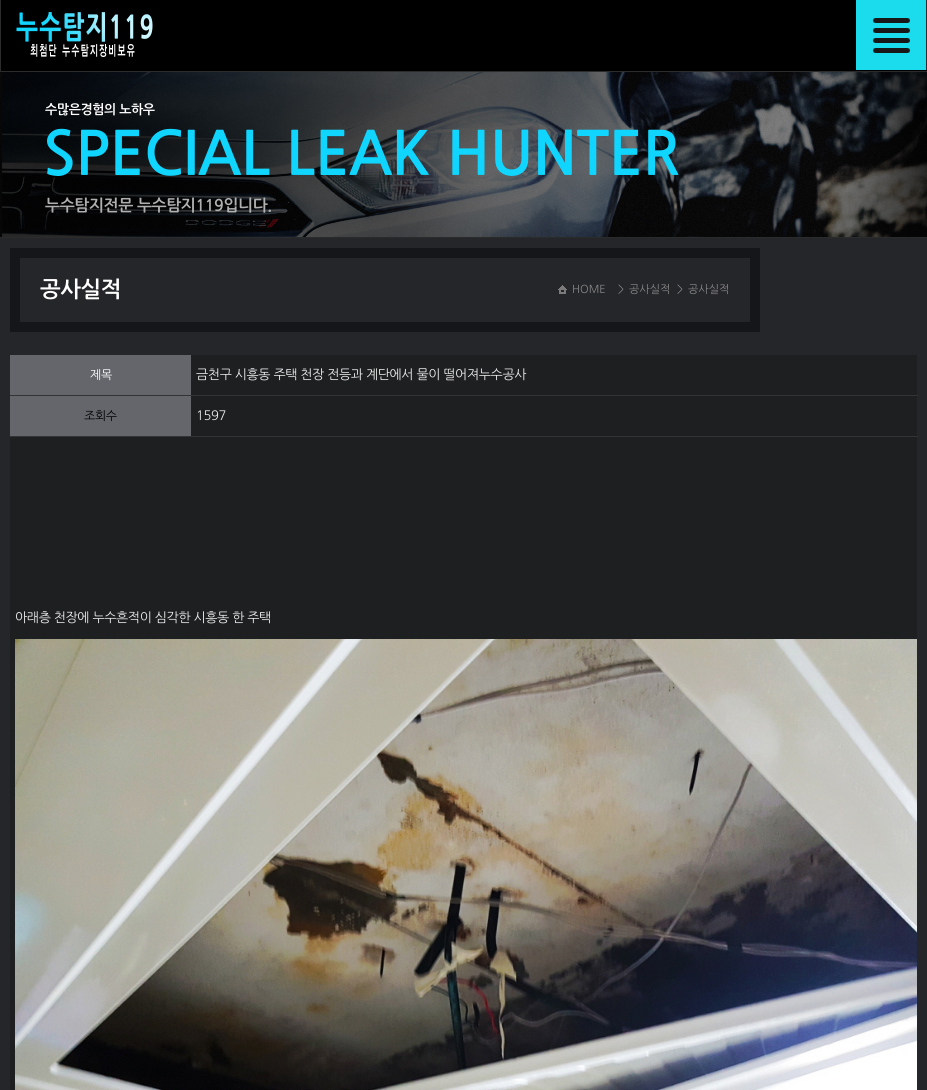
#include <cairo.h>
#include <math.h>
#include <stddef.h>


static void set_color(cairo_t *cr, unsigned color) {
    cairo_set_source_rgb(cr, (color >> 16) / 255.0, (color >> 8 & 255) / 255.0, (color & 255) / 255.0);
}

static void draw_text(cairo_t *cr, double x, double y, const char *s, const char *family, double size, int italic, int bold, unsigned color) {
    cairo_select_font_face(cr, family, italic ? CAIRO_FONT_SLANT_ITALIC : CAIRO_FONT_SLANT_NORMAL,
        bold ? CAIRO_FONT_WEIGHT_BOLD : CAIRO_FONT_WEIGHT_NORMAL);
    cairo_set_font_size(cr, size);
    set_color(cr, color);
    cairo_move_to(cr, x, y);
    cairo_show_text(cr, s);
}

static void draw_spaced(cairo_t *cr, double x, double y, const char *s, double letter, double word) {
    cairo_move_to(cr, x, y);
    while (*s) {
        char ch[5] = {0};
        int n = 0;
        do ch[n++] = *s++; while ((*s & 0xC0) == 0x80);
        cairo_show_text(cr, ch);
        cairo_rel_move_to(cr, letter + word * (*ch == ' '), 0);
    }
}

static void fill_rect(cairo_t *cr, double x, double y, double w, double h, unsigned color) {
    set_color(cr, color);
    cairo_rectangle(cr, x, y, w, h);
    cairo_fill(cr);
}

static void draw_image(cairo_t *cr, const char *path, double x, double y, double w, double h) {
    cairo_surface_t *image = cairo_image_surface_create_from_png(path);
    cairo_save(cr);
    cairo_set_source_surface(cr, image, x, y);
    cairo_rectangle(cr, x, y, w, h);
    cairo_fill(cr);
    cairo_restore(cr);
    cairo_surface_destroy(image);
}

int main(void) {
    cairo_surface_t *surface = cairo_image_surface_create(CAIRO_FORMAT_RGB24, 927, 1090);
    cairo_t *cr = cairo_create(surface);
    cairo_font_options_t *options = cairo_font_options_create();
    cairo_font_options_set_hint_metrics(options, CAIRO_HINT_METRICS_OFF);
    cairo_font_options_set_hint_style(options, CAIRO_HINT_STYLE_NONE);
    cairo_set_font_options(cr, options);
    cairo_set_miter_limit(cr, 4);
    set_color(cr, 0x000000);
    cairo_paint(cr);
    fill_rect(cr, 0, 71, 927, 1, 0x2B2B2B);
    fill_rect(cr, 926, 0, 1, 71, 0x2B2B2B);
    fill_rect(cr, 926, 70, 1, 1, 0x000000);
    fill_rect(cr, 0, 0, 1, 71, 0x2B2B2B);
    draw_image(cr, "assets/img1.png", 16, 12, 137, 45);
    draw_image(cr, "assets/img2.png", 856, 0, 70, 70);
    fill_rect(cr, 0, 237, 927, 1, 0x2B2B2B);
    draw_image(cr, "assets/img3.png", 0, 72, 927, 165);
    cairo_select_font_face(cr, "NanumGothic", CAIRO_FONT_SLANT_NORMAL, CAIRO_FONT_WEIGHT_BOLD);
    cairo_set_font_size(cr, 13);
    set_color(cr, 0xFFFFFF);
    draw_spaced(cr, 45, 114, "수많은경험의 노하우", -0.4, 0);
    cairo_set_font_size(cr, 60);
    set_color(cr, 0x10D5FF);
    draw_spaced(cr, 43, 175, "SPECIAL LEAK HUNTER", -0.4, 0);
    cairo_set_font_size(cr, 16);
    set_color(cr, 0xB0B0B0);
    draw_spaced(cr, 45, 211, "누수탐지전문 누수탐지119입니다.", -0.4, 0);
    fill_rect(cr, 0, 238, 927, 852, 0x25262A);
    cairo_rectangle(cr, 15, 253, 740, 74);
    set_color(cr, 0x151619);
    cairo_set_line_width(cr, 10);
    cairo_stroke(cr);
    cairo_set_font_size(cr, 22);
    set_color(cr, 0xFFFFFF);
    draw_spaced(cr, 40, 297, "공사실적", -0.4, 0);
    draw_image(cr, "assets/img4.png", 558, 285, 9, 9);
    draw_text(cr, 572, 293, "HOME", "NanumGothic", 11, 0, 0, 0x888888);
    draw_text(cr, 618, 293, ">", "NanumGothic", 11, 0, 0, 0x888888);
    draw_text(cr, 629, 293, "공사실적", "NanumGothic", 11, 0, 0, 0x888888);
    draw_text(cr, 677, 293, ">", "NanumGothic", 11, 0, 0, 0x888888);
    draw_text(cr, 688, 293, "공사실적", "NanumGothic", 11, 0, 0, 0x888888);
    fill_rect(cr, 10, 355, 907, 735, 0x1E1F21);
    fill_rect(cr, 10, 355, 181, 40, 0x64666C);
    cairo_set_font_size(cr, 12);
    set_color(cr, 0xFFFFFF);
    draw_spaced(cr, 90, 379, "제목", -0.4, 0);
    fill_rect(cr, 10, 395, 908, 1, 0x343434);
    cairo_set_font_size(cr, 13);
    set_color(cr, 0xEEEEEE);
    draw_spaced(cr, 196, 379, "금천구 시흥동 주택 천장 전등과 계단에서 물이 떨어져누수공사", -0.4, 0);
    fill_rect(cr, 10, 396, 181, 40, 0x64666C);
    cairo_set_font_size(cr, 12);
    set_color(cr, 0x000000);
    draw_spaced(cr, 84, 420, "조회수", -0.4, 0);
    fill_rect(cr, 10, 436, 908, 1, 0x343434);
    cairo_set_font_size(cr, 13);
    set_color(cr, 0xEEEEEE);
    draw_spaced(cr, 196, 420, "1597", -0.4, 0);
    draw_spaced(cr, 15, 622, "아래층 천장에 누수흔적이 심각한 시흥동 한 주택", -0.4, 0);
    draw_image(cr, "assets/img5.png", 15, 639, 902, 451);
    cairo_surface_write_to_png(surface, "output.png");
    cairo_font_options_destroy(options);
    cairo_destroy(cr);
    cairo_surface_destroy(surface);
    return 0;
}
